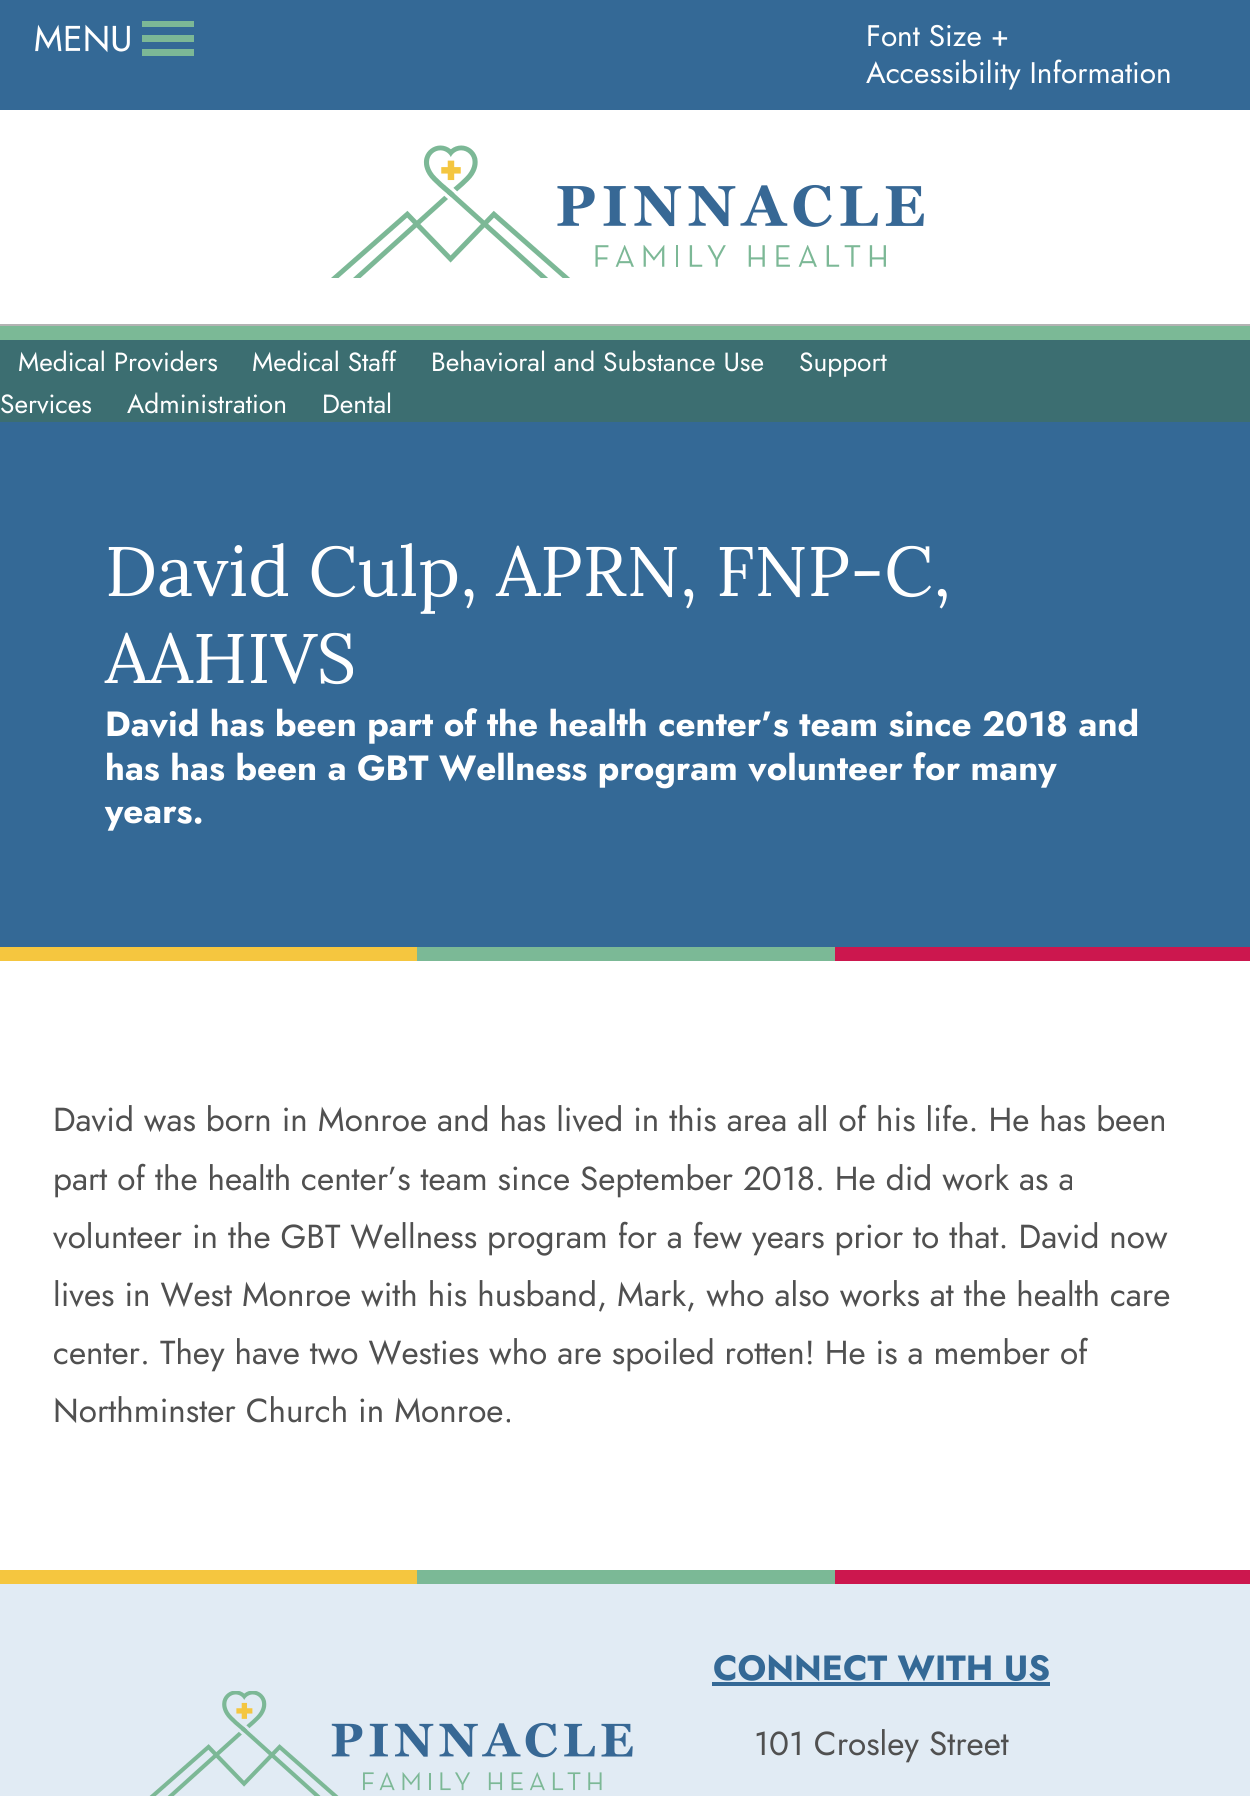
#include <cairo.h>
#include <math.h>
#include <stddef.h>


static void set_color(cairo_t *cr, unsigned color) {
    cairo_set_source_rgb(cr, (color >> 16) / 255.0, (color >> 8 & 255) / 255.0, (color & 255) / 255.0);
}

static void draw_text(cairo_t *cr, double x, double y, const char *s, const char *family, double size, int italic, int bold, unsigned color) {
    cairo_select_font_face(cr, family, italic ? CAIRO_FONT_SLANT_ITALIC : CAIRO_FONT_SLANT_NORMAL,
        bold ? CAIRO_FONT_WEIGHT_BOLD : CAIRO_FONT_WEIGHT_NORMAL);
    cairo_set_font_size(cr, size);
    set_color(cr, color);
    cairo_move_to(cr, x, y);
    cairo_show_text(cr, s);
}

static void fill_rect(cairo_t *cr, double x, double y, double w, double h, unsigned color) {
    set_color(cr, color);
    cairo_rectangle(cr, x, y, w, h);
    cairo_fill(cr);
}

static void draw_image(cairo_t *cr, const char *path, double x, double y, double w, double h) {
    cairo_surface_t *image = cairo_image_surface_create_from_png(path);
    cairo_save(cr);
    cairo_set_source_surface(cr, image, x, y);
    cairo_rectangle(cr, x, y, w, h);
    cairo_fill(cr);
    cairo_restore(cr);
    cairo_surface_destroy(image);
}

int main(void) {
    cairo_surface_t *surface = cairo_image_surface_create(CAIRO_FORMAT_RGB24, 1250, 1796);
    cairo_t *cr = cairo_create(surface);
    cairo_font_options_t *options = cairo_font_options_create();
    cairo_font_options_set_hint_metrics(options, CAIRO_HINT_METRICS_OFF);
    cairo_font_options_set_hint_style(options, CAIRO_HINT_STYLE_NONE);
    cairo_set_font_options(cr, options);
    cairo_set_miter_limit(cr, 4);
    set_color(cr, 0xFFFFFF);
    cairo_paint(cr);
    fill_rect(cr, 0, 326, 1250, 14, 0x7BB996);
    fill_rect(cr, 0, 0, 1250, 110, 0x346996);
    draw_image(cr, "assets/img1.png", 35, 21, 159, 35);
    draw_text(cr, 866, 46, "Font Size +", "Jost", 29.75, 0, 0, 0xFFFFFF);
    draw_text(cr, 866, 83, "Accessibility Information", "Jost", 29.75, 0, 0, 0xFFFFFF);
    fill_rect(cr, 0, 324, 1250, 2, 0xB3B3B3);
    draw_image(cr, "assets/img2.png", 331, 145, 593, 133);
    fill_rect(cr, 0, 340, 1250, 82, 0x3C6E71);
    draw_text(cr, 18, 371, "Medical Providers", "Jost", 26.25, 0, 0, 0xFFFFFF);
    draw_text(cr, 252, 371, "Medical Staff", "Jost", 26.25, 0, 0, 0xFFFFFF);
    draw_text(cr, 431, 371, "Behavioral and Substance Use", "Jost", 26.25, 0, 0, 0xFFFFFF);
    draw_text(cr, 799, 371, "Support", "Jost", 26.25, 0, 0, 0xFFFFFF);
    draw_text(cr, 0, 413, "Services", "Jost", 26.25, 0, 0, 0xFFFFFF);
    draw_text(cr, 127, 413, "Administration", "Jost", 26.25, 0, 0, 0xFFFFFF);
    draw_text(cr, 322, 413, "Dental", "Jost", 26.25, 0, 0, 0xFFFFFF);
    fill_rect(cr, 0, 422, 1250, 525, 0x346996);
    draw_text(cr, 105, 596, "David Culp, APRN, FNP-C,", "Lora", 70, 0, 0, 0xFFFFFF);
    draw_text(cr, 105, 683, "AAHIVS", "Lora", 70, 0, 0, 0xFFFFFF);
    draw_text(cr, 105, 736, "David has been part of the health center’s team since 2018 and", "Jost", 35, 0, 1, 0xFFFFFF);
    draw_text(cr, 105, 780, "has has been a GBT Wellness program volunteer for many", "Jost", 35, 0, 1, 0xFFFFFF);
    draw_text(cr, 105, 823, "years.", "Jost", 35, 0, 1, 0xFFFFFF);
    fill_rect(cr, 0, 947, 417, 14, 0xF5C63F);
    fill_rect(cr, 417, 947, 418, 14, 0x7BB996);
    fill_rect(cr, 835, 947, 415, 14, 0xCC174E);
    draw_text(cr, 53, 1131, "David was born in Monroe and has lived in this area all of his life. He has been", "Jost", 33.25, 0, 0, 0x505050);
    draw_text(cr, 53, 1190, "part of the health center’s team since September 2018. He did work as a", "Jost", 33.25, 0, 0, 0x505050);
    draw_text(cr, 53, 1248, "volunteer in the GBT Wellness program for a few years prior to that. David now", "Jost", 33.25, 0, 0, 0x505050);
    draw_text(cr, 53, 1306, "lives in West Monroe with his husband, Mark, who also works at the health care", "Jost", 33.25, 0, 0, 0x505050);
    draw_text(cr, 53, 1364, "center. They have two Westies who are spoiled rotten! He is a member of", "Jost", 33.25, 0, 0, 0x505050);
    draw_text(cr, 53, 1422, "Northminster Church in Monroe.", "Jost", 33.25, 0, 0, 0x505050);
    fill_rect(cr, 0, 1570, 417, 14, 0xF5C63F);
    fill_rect(cr, 417, 1570, 418, 14, 0x7BB996);
    fill_rect(cr, 835, 1570, 415, 14, 0xCC174E);
    fill_rect(cr, 0, 1584, 1250, 212, 0xE1EBF4);
    draw_image(cr, "assets/img3.png", 149, 1691, 484, 105);
    draw_text(cr, 713, 1680, "CONNECT WITH US", "Jost", 35, 0, 1, 0x346996);
    fill_rect(cr, 712, 1682, 338, 4, 0x346996);
    draw_text(cr, 754, 1755, "101 Crosley Street", "Jost", 33.25, 0, 0, 0x505050);
    cairo_surface_write_to_png(surface, "output.png");
    cairo_font_options_destroy(options);
    cairo_destroy(cr);
    cairo_surface_destroy(surface);
    return 0;
}
